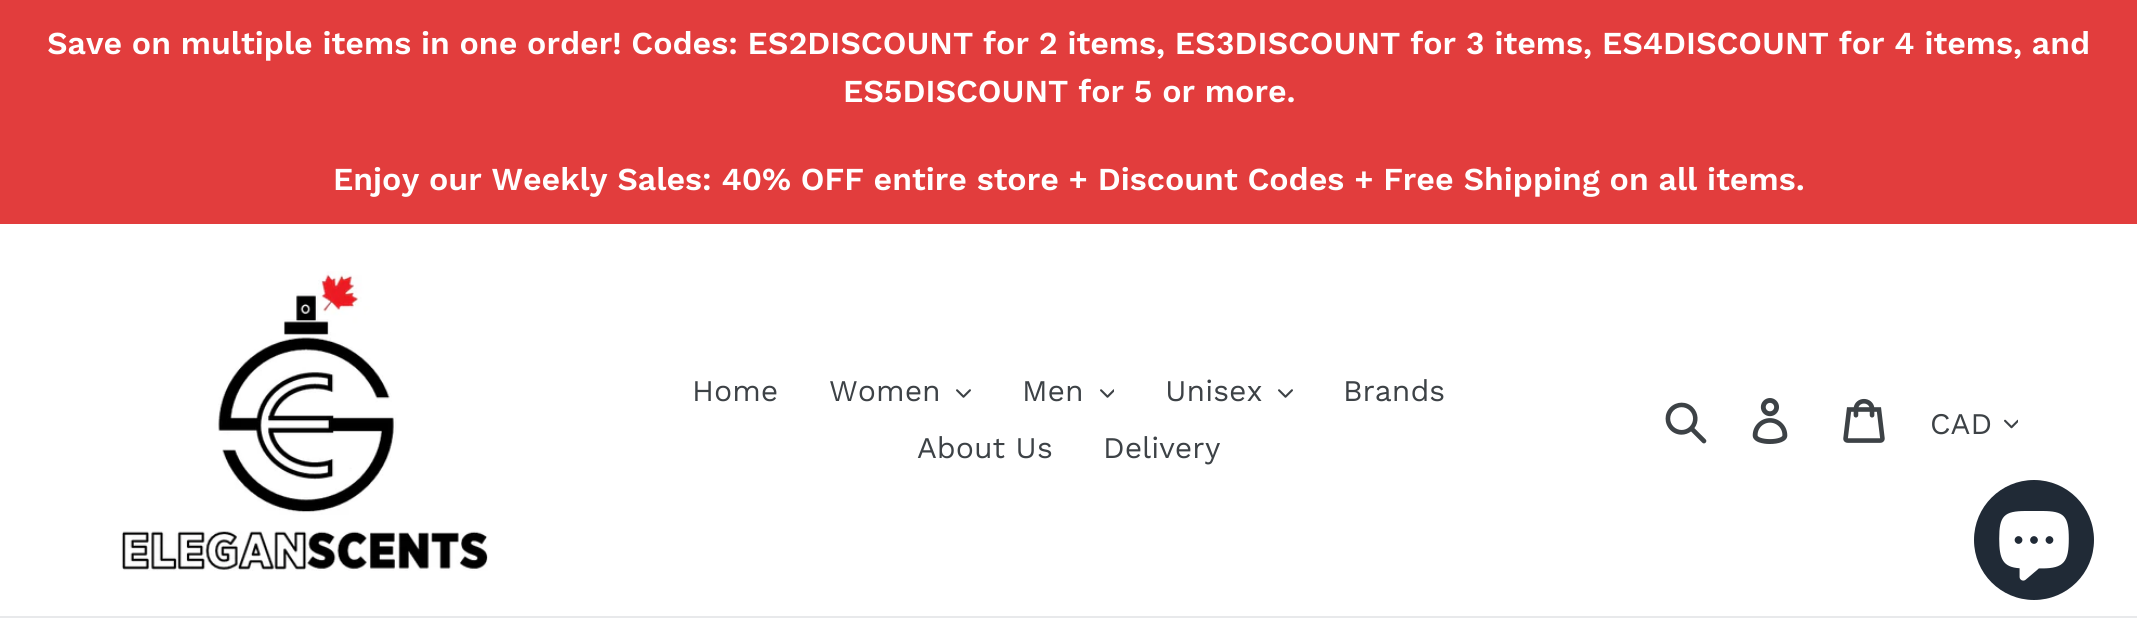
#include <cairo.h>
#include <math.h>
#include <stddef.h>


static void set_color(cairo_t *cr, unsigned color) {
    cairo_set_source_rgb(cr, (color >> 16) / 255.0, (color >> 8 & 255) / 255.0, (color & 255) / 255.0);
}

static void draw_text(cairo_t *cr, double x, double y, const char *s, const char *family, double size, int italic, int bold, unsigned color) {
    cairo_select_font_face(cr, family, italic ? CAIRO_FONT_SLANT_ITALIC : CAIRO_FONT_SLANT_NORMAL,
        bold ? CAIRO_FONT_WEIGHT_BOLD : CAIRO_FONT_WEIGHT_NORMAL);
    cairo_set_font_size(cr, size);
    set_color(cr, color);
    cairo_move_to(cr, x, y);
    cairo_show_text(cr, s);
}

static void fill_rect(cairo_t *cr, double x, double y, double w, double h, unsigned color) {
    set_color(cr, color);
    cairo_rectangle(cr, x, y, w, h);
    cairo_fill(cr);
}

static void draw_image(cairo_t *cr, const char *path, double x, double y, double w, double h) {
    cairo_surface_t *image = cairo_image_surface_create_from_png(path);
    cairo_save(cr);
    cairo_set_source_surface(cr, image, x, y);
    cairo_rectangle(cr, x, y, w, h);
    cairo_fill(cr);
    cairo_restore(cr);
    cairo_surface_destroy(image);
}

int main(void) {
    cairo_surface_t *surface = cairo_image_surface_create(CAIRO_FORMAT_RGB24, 2137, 641);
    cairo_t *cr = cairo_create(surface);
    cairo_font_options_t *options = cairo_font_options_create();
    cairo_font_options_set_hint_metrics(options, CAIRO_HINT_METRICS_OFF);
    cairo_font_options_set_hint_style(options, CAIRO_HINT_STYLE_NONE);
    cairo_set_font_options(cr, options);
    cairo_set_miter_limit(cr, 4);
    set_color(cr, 0xFFFFFF);
    cairo_paint(cr);
    fill_rect(cr, 0, 0, 2137, 224, 0xE23D3D);
    draw_text(cr, 47, 54, "Save on multiple items in one order! Codes: ES2DISCOUNT for 2 items, ES3DISCOUNT for 3 items, ES4DISCOUNT for 4 items, and", "Work Sans SemiBold", 32, 0, 0, 0xFFFFFF);
    draw_text(cr, 843, 102, "ES5DISCOUNT for 5 or more.", "Work Sans SemiBold", 32, 0, 0, 0xFFFFFF);
    draw_text(cr, 333, 190, "Enjoy our Weekly Sales: 40% OFF entire store + Discount Codes + Free Shipping on all items.", "Work Sans SemiBold", 32, 0, 0, 0xFFFFFF);
    fill_rect(cr, 0, 616, 2137, 2, 0xE8E9EB);
    draw_image(cr, "assets/img1.png", 121, 271, 367, 300);
    draw_text(cr, 692, 401, "Home", "Work Sans", 30, 0, 0, 0x3D4246);
    draw_text(cr, 829, 401, "Women", "Work Sans", 30, 0, 0, 0x3D4246);
    draw_image(cr, "assets/img2.png", 956, 389, 15, 9);
    draw_text(cr, 1022, 401, "Men", "Work Sans", 30, 0, 0, 0x3D4246);
    draw_image(cr, "assets/img3.png", 1100, 389, 14, 9);
    draw_text(cr, 1165, 401, "Unisex", "Work Sans", 30, 0, 0, 0x3D4246);
    draw_image(cr, "assets/img2.png", 1278, 389, 15, 9);
    draw_text(cr, 1343, 401, "Brands", "Work Sans", 30, 0, 0, 0x3D4246);
    draw_text(cr, 917, 458, "About Us", "Work Sans", 30, 0, 0, 0x3D4246);
    draw_text(cr, 1103, 458, "Delivery", "Work Sans", 30, 0, 0, 0x3D4246);
    draw_image(cr, "assets/img4.png", 1665, 402, 42, 42);
    draw_image(cr, "assets/img5.png", 1752, 398, 36, 46);
    draw_image(cr, "assets/img6.png", 1843, 398, 42, 45);
    draw_text(cr, 1930, 434, "CAD", "Work Sans", 30, 0, 0, 0x3D4246);
    draw_image(cr, "assets/img7.png", 2004, 419, 14, 10);
    set_color(cr, 0x202A36);
    cairo_arc(cr, 2034, 540, 60, 0, 2 * M_PI);
    cairo_fill(cr);
    draw_image(cr, "assets/img8.png", 1999, 511, 70, 70);
    cairo_surface_write_to_png(surface, "output.png");
    cairo_font_options_destroy(options);
    cairo_destroy(cr);
    cairo_surface_destroy(surface);
    return 0;
}
